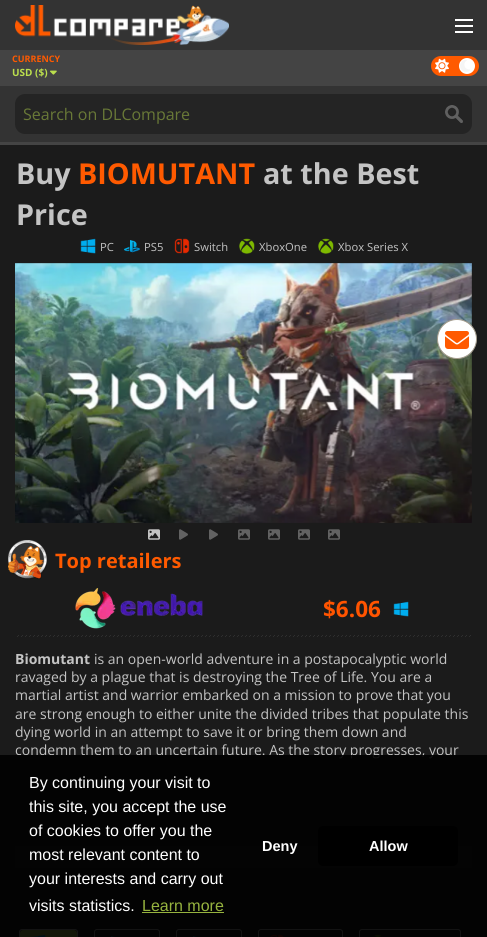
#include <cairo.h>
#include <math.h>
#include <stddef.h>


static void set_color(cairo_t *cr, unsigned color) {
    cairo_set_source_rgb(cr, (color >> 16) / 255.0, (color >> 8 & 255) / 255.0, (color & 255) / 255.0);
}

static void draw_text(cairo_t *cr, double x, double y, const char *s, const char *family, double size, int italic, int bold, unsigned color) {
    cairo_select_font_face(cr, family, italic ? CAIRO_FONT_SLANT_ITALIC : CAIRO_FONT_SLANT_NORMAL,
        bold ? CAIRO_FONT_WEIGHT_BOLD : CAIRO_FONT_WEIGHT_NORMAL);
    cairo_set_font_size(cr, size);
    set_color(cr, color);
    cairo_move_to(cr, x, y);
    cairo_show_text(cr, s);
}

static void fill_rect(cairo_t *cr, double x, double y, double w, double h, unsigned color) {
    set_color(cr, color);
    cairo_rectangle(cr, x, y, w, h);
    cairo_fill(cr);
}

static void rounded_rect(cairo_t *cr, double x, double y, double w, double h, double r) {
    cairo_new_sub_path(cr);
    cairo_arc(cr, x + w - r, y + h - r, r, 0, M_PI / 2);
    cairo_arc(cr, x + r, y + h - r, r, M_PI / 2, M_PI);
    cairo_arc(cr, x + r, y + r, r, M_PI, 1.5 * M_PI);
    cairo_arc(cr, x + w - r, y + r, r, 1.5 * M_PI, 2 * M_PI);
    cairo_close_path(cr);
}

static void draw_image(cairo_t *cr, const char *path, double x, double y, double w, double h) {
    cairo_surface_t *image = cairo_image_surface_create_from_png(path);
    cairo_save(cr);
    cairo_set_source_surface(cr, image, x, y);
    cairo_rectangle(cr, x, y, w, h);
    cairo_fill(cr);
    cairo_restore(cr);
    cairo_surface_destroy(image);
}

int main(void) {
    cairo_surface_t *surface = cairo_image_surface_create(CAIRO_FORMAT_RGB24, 487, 937);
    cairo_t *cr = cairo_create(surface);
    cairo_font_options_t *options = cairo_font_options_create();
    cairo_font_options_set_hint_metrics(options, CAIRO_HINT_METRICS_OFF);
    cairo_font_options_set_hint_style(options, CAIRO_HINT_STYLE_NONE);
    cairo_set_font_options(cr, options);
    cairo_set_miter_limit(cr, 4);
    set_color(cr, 0x444444);
    cairo_paint(cr);
    fill_rect(cr, 0, 0, 487, 50, 0x333333);
    draw_image(cr, "assets/img1.png", 15, 5, 214, 40);
    fill_rect(cr, 455, 31, 18, 2, 0xFFFFFF);
    fill_rect(cr, 455, 25, 18, 2, 0xFFFFFF);
    fill_rect(cr, 455, 19, 18, 2, 0xFFFFFF);
    draw_text(cr, 12, 62, "CURRENCY", "Open Sans", 9, 0, 1, 0xFF5A00);
    draw_text(cr, 12, 76, "USD ($)", "Open Sans", 10, 0, 1, 0xBBDF4D);
    draw_image(cr, "assets/img2.png", 50, 70, 7, 5);
    set_color(cr, 0xFF5A00);
    rounded_rect(cr, 431, 56, 48, 20, 10);
    cairo_fill(cr);
    draw_image(cr, "assets/img3.png", 435, 58, 14, 15);
    set_color(cr, 0xFFFFFF);
    cairo_arc(cr, 467, 66, 8, 0, 2 * M_PI);
    cairo_fill(cr);
    draw_image(cr, "assets/img4.png", 460, 60, 10, 12);
    fill_rect(cr, 0, 86, 487, 56, 0x333333);
    set_color(cr, 0x242424);
    rounded_rect(cr, 15, 94, 457, 40, 10);
    cairo_fill(cr);
    draw_image(cr, "assets/img5.png", 445, 105, 18, 18);
    draw_text(cr, 23, 120, "Search on DLCompare", "Open Sans", 16, 0, 0, 0x697937);
    fill_rect(cr, 0, 145, 487, 792, 0x1B1B1B);
    draw_text(cr, 16, 184, "Buy", "Open Sans", 28.75, 0, 1, 0xC4C4C4);
    draw_text(cr, 78, 184, "BIOMUTANT", "Open Sans", 28.75, 0, 1, 0xFF5A00);
    draw_text(cr, 263, 184, "at the Best", "Open Sans", 28.75, 0, 1, 0xC4C4C4);
    draw_text(cr, 16, 225, "Price", "Open Sans", 28.75, 0, 1, 0xC4C4C4);
    draw_image(cr, "assets/img6.png", 80, 238, 16, 16);
    draw_text(cr, 100, 251, "PC", "Open Sans", 11.25, 0, 0, 0xC4C4C4);
    draw_image(cr, "assets/img7.png", 124, 240, 16, 13);
    draw_text(cr, 144, 251, "PS5", "Open Sans", 11.25, 0, 0, 0xC4C4C4);
    draw_image(cr, "assets/img8.png", 174, 238, 16, 16);
    draw_text(cr, 194, 251, "Switch", "Open Sans", 11.25, 0, 0, 0xC4C4C4);
    draw_image(cr, "assets/img9.png", 239, 238, 16, 16);
    draw_text(cr, 259, 251, "XboxOne", "Open Sans", 11.25, 0, 0, 0xC4C4C4);
    draw_image(cr, "assets/img9.png", 318, 238, 16, 16);
    draw_text(cr, 338, 251, "Xbox Series X", "Open Sans", 11.25, 0, 0, 0xC4C4C4);
    draw_image(cr, "assets/img10.png", 15, 263, 457, 260);
    draw_image(cr, "assets/img11.png", 148, 529, 12, 11);
    draw_image(cr, "assets/img12.png", 179, 529, 9, 11);
    draw_image(cr, "assets/img12.png", 209, 529, 9, 11);
    draw_image(cr, "assets/img13.png", 238, 529, 12, 11);
    draw_image(cr, "assets/img13.png", 268, 529, 12, 11);
    draw_image(cr, "assets/img13.png", 298, 529, 12, 11);
    draw_image(cr, "assets/img13.png", 328, 529, 12, 11);
    set_color(cr, 0xFFFFFF);
    cairo_arc(cr, 457, 339, 19.5, 0, 2 * M_PI);
    cairo_fill_preserve(cr);
    set_color(cr, 0xA39B8C);
    cairo_set_line_width(cr, 1);
    cairo_stroke(cr);
    draw_image(cr, "assets/img14.png", 445, 331, 24, 18);
    draw_image(cr, "assets/img15.png", 8, 540, 39, 40);
    draw_text(cr, 55, 568, "Top retailers", "Open Sans", 20, 0, 1, 0xFF5A00);
    draw_image(cr, "assets/img16.png", 75, 588, 128, 41);
    draw_text(cr, 323, 617, "$6.06", "Open Sans", 22.5, 0, 1, 0xFF5400);
    draw_image(cr, "assets/img6.png", 393, 601, 16, 16);
    draw_image(cr, "assets/img17.png", 17, 635, 454, 2);
    draw_text(cr, 15, 664, "Biomutant", "Open Sans", 14, 0, 1, 0xC4C4C4);
    draw_text(cr, 94, 664, "is an open-world adventure in a postapocalyptic world", "Open Sans", 14, 0, 0, 0xC4C4C4);
    draw_text(cr, 15, 682, "ravaged by a plague that is destroying the Tree of Life. You are a", "Open Sans", 14, 0, 0, 0xC4C4C4);
    draw_text(cr, 15, 700, "martial artist and warrior embarked on a mission to prove that you", "Open Sans", 14, 0, 0, 0xC4C4C4);
    draw_text(cr, 15, 719, "are strong enough to either unite the divided tribes that populate this", "Open Sans", 14, 0, 0, 0xC4C4C4);
    draw_text(cr, 15, 737, "dying world in an attempt to save it or bring them down and", "Open Sans", 14, 0, 0, 0xC4C4C4);
    draw_text(cr, 15, 755, "condemn them to an uncertain future. As the story progresses, your", "Open Sans", 14, 0, 0, 0xC4C4C4);
    fill_rect(cr, 15, 846, 457, 22, 0x262626);
    rounded_rect(cr, 19.5, 929.5, 58, 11, 2.5);
    set_color(cr, 0xC4C4C4);
    cairo_stroke(cr);
    set_color(cr, 0xBBDF4D);
    rounded_rect(cr, 20, 930, 57, 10, 3);
    cairo_fill(cr);
    draw_image(cr, "assets/img18.png", 31, 934, 15, 3);
    rounded_rect(cr, 94.5, 929.5, 65, 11, 2.5);
    set_color(cr, 0xC4C4C4);
    cairo_stroke(cr);
    draw_image(cr, "assets/img19.png", 111, 936, 4, 1);
    rounded_rect(cr, 176.5, 929.5, 65, 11, 2.5);
    cairo_stroke(cr);
    draw_image(cr, "assets/img19.png", 193, 936, 4, 1);
    rounded_rect(cr, 258.5, 929.5, 84, 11, 2.5);
    cairo_stroke(cr);
    draw_image(cr, "assets/img20.png", 270, 934, 14, 3);
    rounded_rect(cr, 359.5, 929.5, 101, 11, 2.5);
    cairo_stroke(cr);
    draw_image(cr, "assets/img21.png", 372, 934, 12, 3);
    cairo_set_source_rgba(cr, 0, 0, 0, 0.9);
    cairo_rectangle(cr, 0, 755, 487, 182);
    cairo_fill(cr);
    draw_text(cr, 29, 788, "By continuing your visit to", "Liberation Sans", 16, 0, 0, 0xFFFFFF);
    draw_text(cr, 29, 812, "this site, you accept the use", "Liberation Sans", 16, 0, 0, 0xFFFFFF);
    draw_text(cr, 29, 836, "of cookies to offer you the", "Liberation Sans", 16, 0, 0, 0xFFFFFF);
    draw_text(cr, 29, 860, "most relevant content to", "Liberation Sans", 16, 0, 0, 0xFFFFFF);
    draw_text(cr, 29, 884, "your interests and carry out", "Liberation Sans", 16, 0, 0, 0xFFFFFF);
    draw_text(cr, 29, 911, "visits statistics.", "Liberation Sans", 16, 0, 0, 0xFFFFFF);
    draw_text(cr, 142, 911, "Learn more", "Liberation Sans", 16, 0, 0, 0x97B43F);
    fill_rect(cr, 142, 912, 82, 1, 0x96B33E);
    draw_text(cr, 262, 851, "Deny", "Liberation Sans", 14.5, 0, 1, 0xFFFFFF);
    set_color(cr, 0x000000);
    rounded_rect(cr, 318, 826, 140, 40, 5);
    cairo_fill(cr);
    draw_text(cr, 369, 851, "Allow", "Liberation Sans", 14.5, 0, 1, 0xFFFFFF);
    cairo_surface_write_to_png(surface, "output.png");
    cairo_font_options_destroy(options);
    cairo_destroy(cr);
    cairo_surface_destroy(surface);
    return 0;
}
